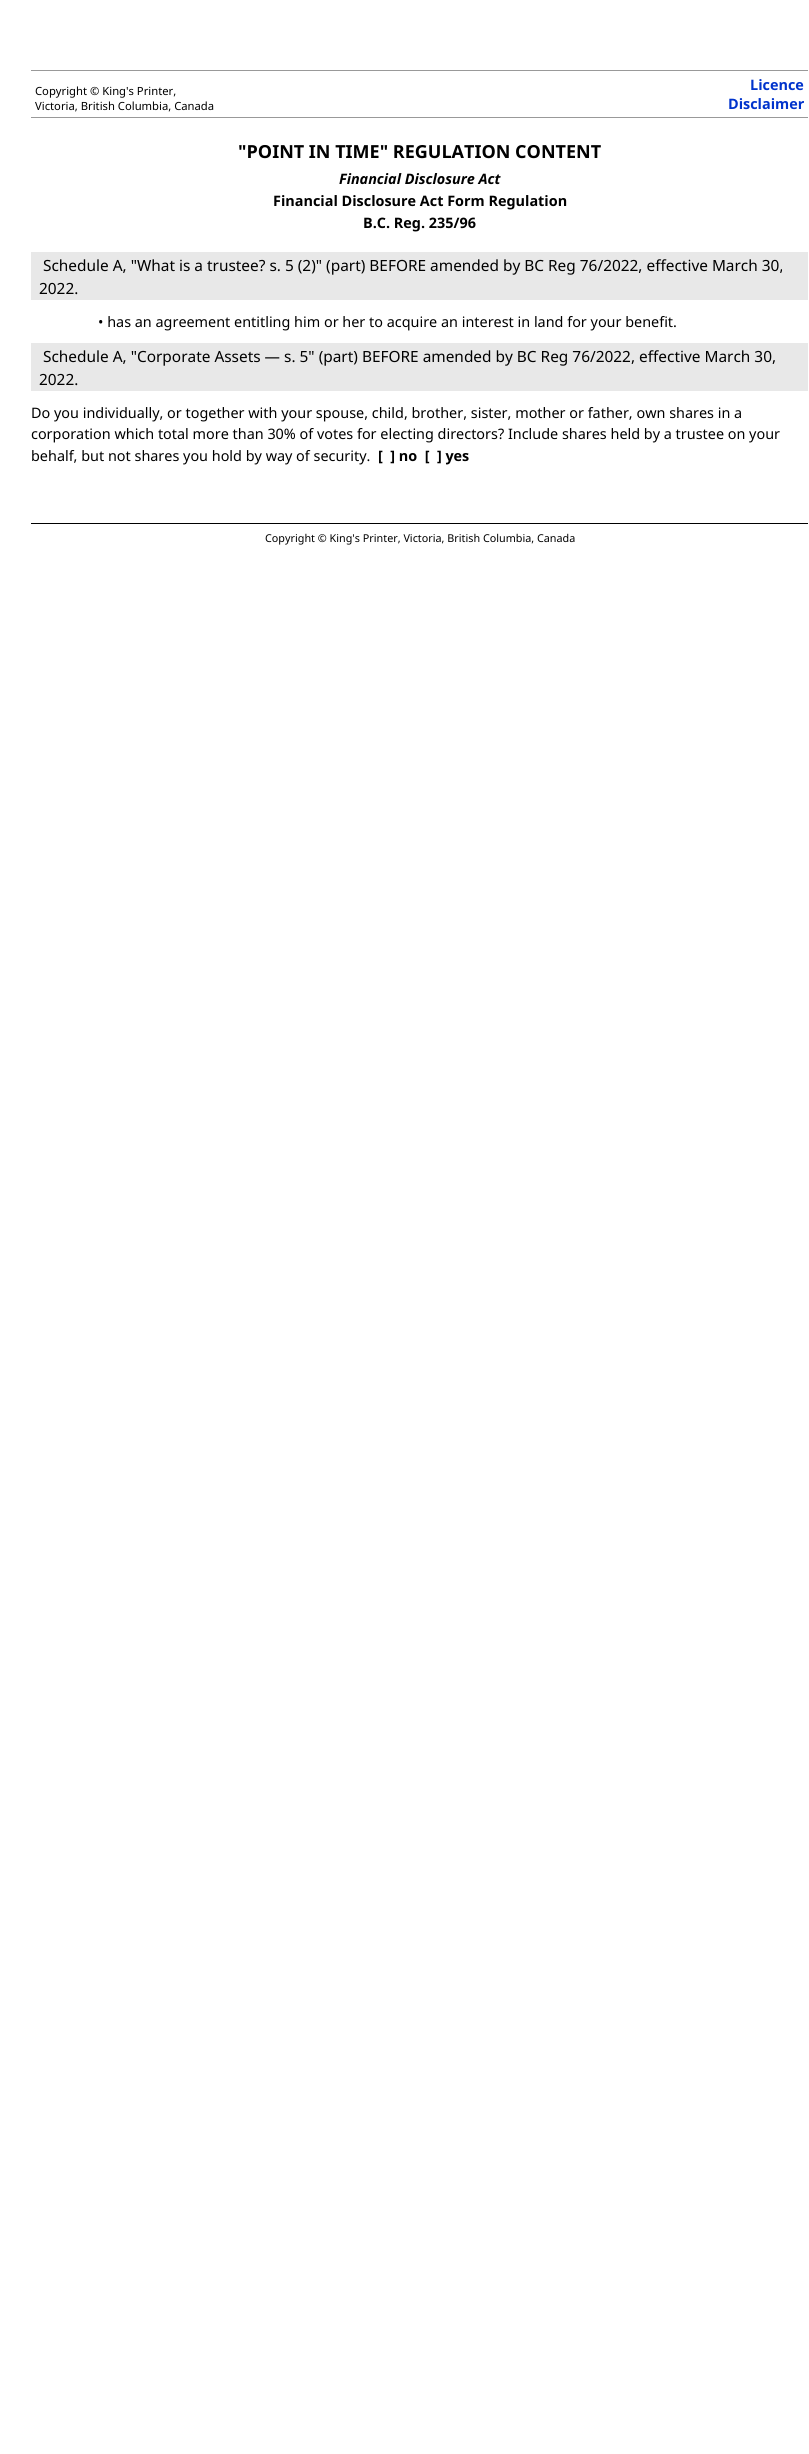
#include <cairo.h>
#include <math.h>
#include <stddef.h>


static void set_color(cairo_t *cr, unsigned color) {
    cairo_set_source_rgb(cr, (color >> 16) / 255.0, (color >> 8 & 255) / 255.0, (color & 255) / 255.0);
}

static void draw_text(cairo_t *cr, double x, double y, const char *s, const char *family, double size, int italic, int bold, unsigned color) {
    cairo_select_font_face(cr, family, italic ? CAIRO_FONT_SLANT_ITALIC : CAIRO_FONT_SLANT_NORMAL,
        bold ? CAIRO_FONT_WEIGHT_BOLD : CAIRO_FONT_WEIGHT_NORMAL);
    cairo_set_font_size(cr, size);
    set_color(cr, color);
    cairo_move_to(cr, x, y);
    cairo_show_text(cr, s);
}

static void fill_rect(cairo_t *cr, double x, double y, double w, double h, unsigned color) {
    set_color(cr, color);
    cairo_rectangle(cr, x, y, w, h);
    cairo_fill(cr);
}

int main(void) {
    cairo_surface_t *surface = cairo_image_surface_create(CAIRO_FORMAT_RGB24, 809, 2454);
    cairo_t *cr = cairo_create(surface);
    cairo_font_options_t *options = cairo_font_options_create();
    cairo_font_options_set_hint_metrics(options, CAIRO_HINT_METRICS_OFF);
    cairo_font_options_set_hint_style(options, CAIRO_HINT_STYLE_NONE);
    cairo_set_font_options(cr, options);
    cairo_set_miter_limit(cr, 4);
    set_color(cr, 0xFFFFFF);
    cairo_paint(cr);
    fill_rect(cr, 31, 70, 777, 1, 0x999999);
    fill_rect(cr, 31, 117, 777, 1, 0x999999);
    draw_text(cr, 35, 95, "Copyright © King's Printer,", "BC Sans", 11.25, 0, 0, 0x000000);
    draw_text(cr, 35, 110, "Victoria, British Columbia, Canada", "BC Sans", 11.25, 0, 0, 0x000000);
    draw_text(cr, 750, 90, "Licence", "BC Sans", 14.4, 0, 1, 0x0033CC);
    draw_text(cr, 728, 109, "Disclaimer", "BC Sans", 14.4, 0, 1, 0x0033CC);
    draw_text(cr, 238, 158, "\"POINT IN TIME\" REGULATION CONTENT", "BC Sans", 18, 0, 1, 0x000000);
    draw_text(cr, 339, 184, "Financial Disclosure Act", "BC Sans", 14.4, 1, 1, 0x000000);
    draw_text(cr, 273, 206, "Financial Disclosure Act Form Regulation", "BC Sans", 14.4, 0, 1, 0x000000);
    draw_text(cr, 363, 228, "B.C. Reg. 235/96", "BC Sans", 14.4, 0, 1, 0x000000);
    fill_rect(cr, 31, 252, 777, 48, 0xE8E8E8);
    draw_text(cr, 43, 271, "Schedule A, \"What is a trustee? s. 5 (2)\" (part) BEFORE amended by BC Reg 76/2022, effective March 30,", "BC Sans", 15.4, 0, 0, 0x000000);
    draw_text(cr, 39, 294, "2022.", "BC Sans", 15.4, 0, 0, 0x000000);
    draw_text(cr, 98, 327, "• has an agreement entitling him or her to acquire an interest in land for your benefit.", "BC Sans", 14.4, 0, 0, 0x000000);
    fill_rect(cr, 31, 343, 777, 48, 0xE8E8E8);
    draw_text(cr, 43, 362, "Schedule A, \"Corporate Assets — s. 5\" (part) BEFORE amended by BC Reg 76/2022, effective March 30,", "BC Sans", 15.4, 0, 0, 0x000000);
    draw_text(cr, 39, 385, "2022.", "BC Sans", 15.4, 0, 0, 0x000000);
    draw_text(cr, 31, 418, "Do you individually, or together with your spouse, child, brother, sister, mother or father, own shares in a", "BC Sans", 14.4, 0, 0, 0x000000);
    draw_text(cr, 31, 439, "corporation which total more than 30% of votes for electing directors? Include shares held by a trustee on your", "BC Sans", 14.4, 0, 0, 0x000000);
    draw_text(cr, 31, 461, "behalf, but not shares you hold by way of security.", "BC Sans", 14.4, 0, 0, 0x000000);
    draw_text(cr, 378, 461, "[  ] no  [  ] yes", "BC Sans", 14.4, 0, 1, 0x000000);
    fill_rect(cr, 31, 523, 777, 1, 0x000000);
    draw_text(cr, 265, 542, "Copyright © King's Printer, Victoria, British Columbia, Canada", "BC Sans", 10.8, 0, 0, 0x000000);
    cairo_surface_write_to_png(surface, "output.png");
    cairo_font_options_destroy(options);
    cairo_destroy(cr);
    cairo_surface_destroy(surface);
    return 0;
}
